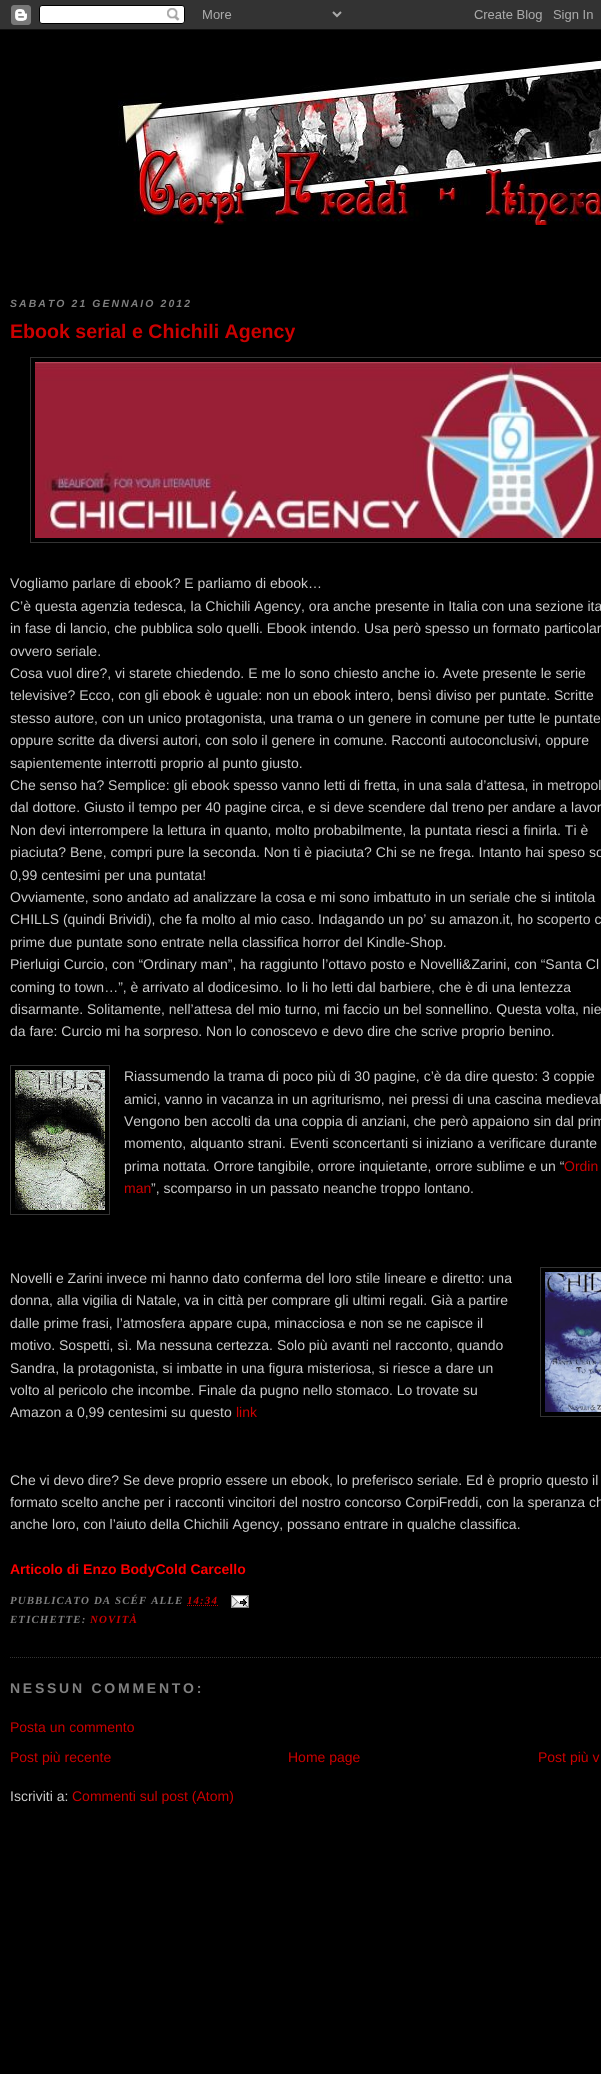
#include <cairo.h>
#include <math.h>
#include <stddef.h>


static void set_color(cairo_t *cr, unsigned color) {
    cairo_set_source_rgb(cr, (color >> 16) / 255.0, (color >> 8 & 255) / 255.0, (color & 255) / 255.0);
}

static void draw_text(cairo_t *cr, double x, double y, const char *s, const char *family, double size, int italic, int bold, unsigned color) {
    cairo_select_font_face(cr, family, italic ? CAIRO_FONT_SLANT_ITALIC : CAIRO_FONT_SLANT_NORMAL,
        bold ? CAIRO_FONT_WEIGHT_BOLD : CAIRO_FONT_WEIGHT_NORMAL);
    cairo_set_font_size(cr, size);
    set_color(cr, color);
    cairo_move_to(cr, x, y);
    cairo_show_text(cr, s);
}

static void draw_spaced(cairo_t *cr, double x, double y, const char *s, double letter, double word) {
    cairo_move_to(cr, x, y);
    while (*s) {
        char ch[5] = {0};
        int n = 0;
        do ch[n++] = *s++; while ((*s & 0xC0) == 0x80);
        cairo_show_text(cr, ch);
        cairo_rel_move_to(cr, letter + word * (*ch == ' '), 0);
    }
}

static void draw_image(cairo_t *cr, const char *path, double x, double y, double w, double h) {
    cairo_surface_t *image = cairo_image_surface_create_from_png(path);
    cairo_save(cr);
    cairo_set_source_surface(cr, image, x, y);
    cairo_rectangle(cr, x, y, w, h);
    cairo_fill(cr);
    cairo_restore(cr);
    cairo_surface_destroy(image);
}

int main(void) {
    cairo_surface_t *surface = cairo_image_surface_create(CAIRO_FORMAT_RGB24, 601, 2074);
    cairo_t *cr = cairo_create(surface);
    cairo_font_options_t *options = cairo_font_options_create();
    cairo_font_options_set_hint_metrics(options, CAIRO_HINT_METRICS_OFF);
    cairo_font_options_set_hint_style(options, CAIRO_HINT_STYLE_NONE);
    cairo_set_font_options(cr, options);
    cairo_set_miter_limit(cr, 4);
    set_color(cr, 0x000000);
    cairo_paint(cr);
    draw_image(cr, "assets/img1.png", 0, 0, 601, 30);
    draw_image(cr, "assets/img2.png", 118, 57, 483, 168);
    cairo_select_font_face(cr, "Liberation Sans", CAIRO_FONT_SLANT_ITALIC, CAIRO_FONT_WEIGHT_BOLD);
    cairo_set_font_size(cr, 10.4);
    set_color(cr, 0x808080);
    draw_spaced(cr, 10, 307, "SABATO 21 GENNAIO 2012", 2.1, 0);
    cairo_new_path(cr);
    cairo_move_to(cr, 10, 1657.5);
    cairo_line_to(cr, 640, 1657.5);
    set_color(cr, 0x333333);
    cairo_set_line_width(cr, 1);
    cairo_set_dash(cr, (double[]){1, 1}, 2, 0);
    cairo_stroke(cr);
    draw_text(cr, 10, 338, "Ebook serial e Chichili Agency", "Liberation Sans", 19.6, 0, 1, 0xCC0000);
    cairo_rectangle(cr, 30.5, 357.5, 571, 185);
    set_color(cr, 0x333333);
    cairo_set_dash(cr, NULL, 0, 0);
    cairo_stroke(cr);
    draw_image(cr, "assets/img3.png", 35, 362, 566, 176);
    draw_text(cr, 10, 588, "Vogliamo parlare di ebook? E parliamo di ebook…", "Liberation Sans", 14, 0, 0, 0xCCCCCC);
    draw_text(cr, 10, 611, "C’è questa agenzia tedesca, la Chichili Agency, ora anche presente in Italia con una sezione ita", "Liberation Sans", 14, 0, 0, 0xCCCCCC);
    draw_text(cr, 10, 633, "in fase di lancio, che pubblica solo quelli. Ebook intendo. Usa però spesso un formato particolar", "Liberation Sans", 14, 0, 0, 0xCCCCCC);
    draw_text(cr, 10, 656, "ovvero seriale.", "Liberation Sans", 14, 0, 0, 0xCCCCCC);
    draw_text(cr, 10, 678, "Cosa vuol dire?, vi starete chiedendo. E me lo sono chiesto anche io. Avete presente le serie", "Liberation Sans", 14, 0, 0, 0xCCCCCC);
    draw_text(cr, 10, 700, "televisive? Ecco, con gli ebook è uguale: non un ebook intero, bensì diviso per puntate. Scritte", "Liberation Sans", 14, 0, 0, 0xCCCCCC);
    draw_text(cr, 10, 723, "stesso autore, con un unico protagonista, una trama o un genere in comune per tutte le puntate", "Liberation Sans", 14, 0, 0, 0xCCCCCC);
    draw_text(cr, 10, 745, "oppure scritte da diversi autori, con solo il genere in comune. Racconti autoconclusivi, oppure", "Liberation Sans", 14, 0, 0, 0xCCCCCC);
    draw_text(cr, 10, 768, "sapientemente interrotti proprio al punto giusto.", "Liberation Sans", 14, 0, 0, 0xCCCCCC);
    draw_text(cr, 10, 790, "Che senso ha? Semplice: gli ebook spesso vanno letti di fretta, in una sala d’attesa, in metropol", "Liberation Sans", 14, 0, 0, 0xCCCCCC);
    draw_text(cr, 10, 812, "dal dottore. Giusto il tempo per 40 pagine circa, e si deve scendere dal treno per andare a lavor", "Liberation Sans", 14, 0, 0, 0xCCCCCC);
    draw_text(cr, 10, 835, "Non devi interrompere la lettura in quanto, molto probabilmente, la puntata riesci a finirla. Ti è", "Liberation Sans", 14, 0, 0, 0xCCCCCC);
    draw_text(cr, 10, 857, "piaciuta? Bene, compri pure la seconda. Non ti è piaciuta? Chi se ne frega. Intanto hai speso so", "Liberation Sans", 14, 0, 0, 0xCCCCCC);
    draw_text(cr, 10, 880, "0,99 centesimi per una puntata!", "Liberation Sans", 14, 0, 0, 0xCCCCCC);
    draw_text(cr, 10, 902, "Ovviamente, sono andato ad analizzare la cosa e mi sono imbattuto in un seriale che si intitola", "Liberation Sans", 14, 0, 0, 0xCCCCCC);
    draw_text(cr, 10, 924, "CHILLS (quindi Brividi), che fa molto al mio caso. Indagando un po’ su amazon.it, ho scoperto c", "Liberation Sans", 14, 0, 0, 0xCCCCCC);
    draw_text(cr, 10, 947, "prime due puntate sono entrate nella classifica horror del Kindle-Shop.", "Liberation Sans", 14, 0, 0, 0xCCCCCC);
    draw_text(cr, 10, 969, "Pierluigi Curcio, con “Ordinary man”, ha raggiunto l’ottavo posto e Novelli&Zarini, con “Santa Cl", "Liberation Sans", 14, 0, 0, 0xCCCCCC);
    draw_text(cr, 10, 992, "coming to town…”, è arrivato al dodicesimo. Io li ho letti dal barbiere, che è di una lentezza", "Liberation Sans", 14, 0, 0, 0xCCCCCC);
    draw_text(cr, 10, 1014, "disarmante. Solitamente, nell’attesa del mio turno, mi faccio un bel sonnellino. Questa volta, nie", "Liberation Sans", 14, 0, 0, 0xCCCCCC);
    draw_text(cr, 10, 1036, "da fare: Curcio mi ha sorpreso. Non lo conoscevo e devo dire che scrive proprio benino.", "Liberation Sans", 14, 0, 0, 0xCCCCCC);
    cairo_rectangle(cr, 10.5, 1065.5, 99, 149);
    set_color(cr, 0x333333);
    cairo_stroke(cr);
    draw_image(cr, "assets/img4.png", 15, 1070, 90, 140);
    draw_text(cr, 124, 1081, "Riassumendo la trama di poco più di 30 pagine, c’è da dire questo: 3 coppie", "Liberation Sans", 14, 0, 0, 0xCCCCCC);
    draw_text(cr, 124, 1104, "amici, vanno in vacanza in un agriturismo, nei pressi di una cascina medieval", "Liberation Sans", 14, 0, 0, 0xCCCCCC);
    draw_text(cr, 124, 1126, "Vengono ben accolti da una coppia di anziani, che però appaiono sin dal prim", "Liberation Sans", 14, 0, 0, 0xCCCCCC);
    draw_text(cr, 124, 1148, "momento, alquanto strani. Eventi sconcertanti si iniziano a verificare durante", "Liberation Sans", 14, 0, 0, 0xCCCCCC);
    draw_text(cr, 124, 1171, "prima nottata. Orrore tangibile, orrore inquietante, orrore sublime e un “", "Liberation Sans", 14, 0, 0, 0xCCCCCC);
    draw_text(cr, 564, 1171, "Ordin", "Liberation Sans", 14, 0, 0, 0xCC0000);
    draw_text(cr, 124, 1193, "man", "Liberation Sans", 14, 0, 0, 0xCC0000);
    draw_text(cr, 151, 1193, "”, scomparso in un passato neanche troppo lontano.", "Liberation Sans", 14, 0, 0, 0xCCCCCC);
    draw_text(cr, 10, 1283, "Novelli e Zarini invece mi hanno dato conferma del loro stile lineare e diretto: una", "Liberation Sans", 14, 0, 0, 0xCCCCCC);
    cairo_rectangle(cr, 540.5, 1267.5, 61, 149);
    set_color(cr, 0x333333);
    cairo_stroke(cr);
    draw_image(cr, "assets/img5.png", 545, 1272, 56, 140);
    draw_text(cr, 10, 1305, "donna, alla vigilia di Natale, va in città per comprare gli ultimi regali. Già a partire", "Liberation Sans", 14, 0, 0, 0xCCCCCC);
    draw_text(cr, 10, 1328, "dalle prime frasi, l’atmosfera appare cupa, minacciosa e non se ne capisce il", "Liberation Sans", 14, 0, 0, 0xCCCCCC);
    draw_text(cr, 10, 1350, "motivo. Sospetti, sì. Ma nessuna certezza. Solo più avanti nel racconto, quando", "Liberation Sans", 14, 0, 0, 0xCCCCCC);
    draw_text(cr, 10, 1373, "Sandra, la protagonista, si imbatte in una figura misteriosa, si riesce a dare un", "Liberation Sans", 14, 0, 0, 0xCCCCCC);
    draw_text(cr, 10, 1395, "volto al pericolo che incombe. Finale da pugno nello stomaco. Lo trovate su", "Liberation Sans", 14, 0, 0, 0xCCCCCC);
    draw_text(cr, 10, 1417, "Amazon a 0,99 centesimi su questo", "Liberation Sans", 14, 0, 0, 0xCCCCCC);
    draw_text(cr, 236, 1417, "link", "Liberation Sans", 14, 0, 0, 0xCC0000);
    draw_text(cr, 10, 1485, "Che vi devo dire? Se deve proprio essere un ebook, lo preferisco seriale. Ed è proprio questo il", "Liberation Sans", 14, 0, 0, 0xCCCCCC);
    draw_text(cr, 10, 1507, "formato scelto anche per i racconti vincitori del nostro concorso CorpiFreddi, con la speranza ch", "Liberation Sans", 14, 0, 0, 0xCCCCCC);
    draw_text(cr, 10, 1529, "anche loro, con l’aiuto della Chichili Agency, possano entrare in qualche classifica.", "Liberation Sans", 14, 0, 0, 0xCCCCCC);
    draw_text(cr, 10, 1574, "Articolo di Enzo BodyCold Carcello", "Liberation Sans", 14, 0, 1, 0xFF0000);
    cairo_select_font_face(cr, "Liberation Serif", CAIRO_FONT_SLANT_ITALIC, CAIRO_FONT_WEIGHT_BOLD);
    cairo_set_font_size(cr, 10.9);
    set_color(cr, 0x808080);
    draw_spaced(cr, 10, 1604, "PUBBLICATO DA SCÉF ALLE", 1.1, 0);
    set_color(cr, 0xCC0000);
    draw_spaced(cr, 187, 1604, "14:34", 1.1, 0);
    cairo_new_path(cr);
    cairo_move_to(cr, 187, 1605.5);
    cairo_line_to(cr, 218, 1605.5);
    cairo_set_dash(cr, (double[]){1, 1}, 2, 0);
    cairo_stroke(cr);
    draw_image(cr, "assets/img6.png", 231, 1595, 18, 13);
    set_color(cr, 0x808080);
    draw_spaced(cr, 10, 1623, "ETICHETTE:", 1.1, 0);
    set_color(cr, 0xCC0000);
    draw_spaced(cr, 90, 1623, "NOVITÀ", 1.1, 0);
    cairo_select_font_face(cr, "Liberation Sans", CAIRO_FONT_SLANT_NORMAL, CAIRO_FONT_WEIGHT_BOLD);
    cairo_set_font_size(cr, 14);
    set_color(cr, 0x808080);
    draw_spaced(cr, 10, 1693, "NESSUN COMMENTO:", 2.75, 0);
    draw_text(cr, 10, 1732, "Posta un commento", "Liberation Sans", 14, 0, 0, 0xCC0000);
    draw_text(cr, 10, 1762, "Post più recente", "Liberation Sans", 14, 0, 0, 0xCC0000);
    draw_text(cr, 288, 1762, "Home page", "Liberation Sans", 14, 0, 0, 0xCC0000);
    draw_text(cr, 538, 1762, "Post più v", "Liberation Sans", 14, 0, 0, 0xCC0000);
    draw_text(cr, 10, 1801, "Iscriviti a:", "Liberation Sans", 14, 0, 0, 0xCCCCCC);
    draw_text(cr, 72, 1801, "Commenti sul post (Atom)", "Liberation Sans", 14, 0, 0, 0xCC0000);
    cairo_surface_write_to_png(surface, "output.png");
    cairo_font_options_destroy(options);
    cairo_destroy(cr);
    cairo_surface_destroy(surface);
    return 0;
}
